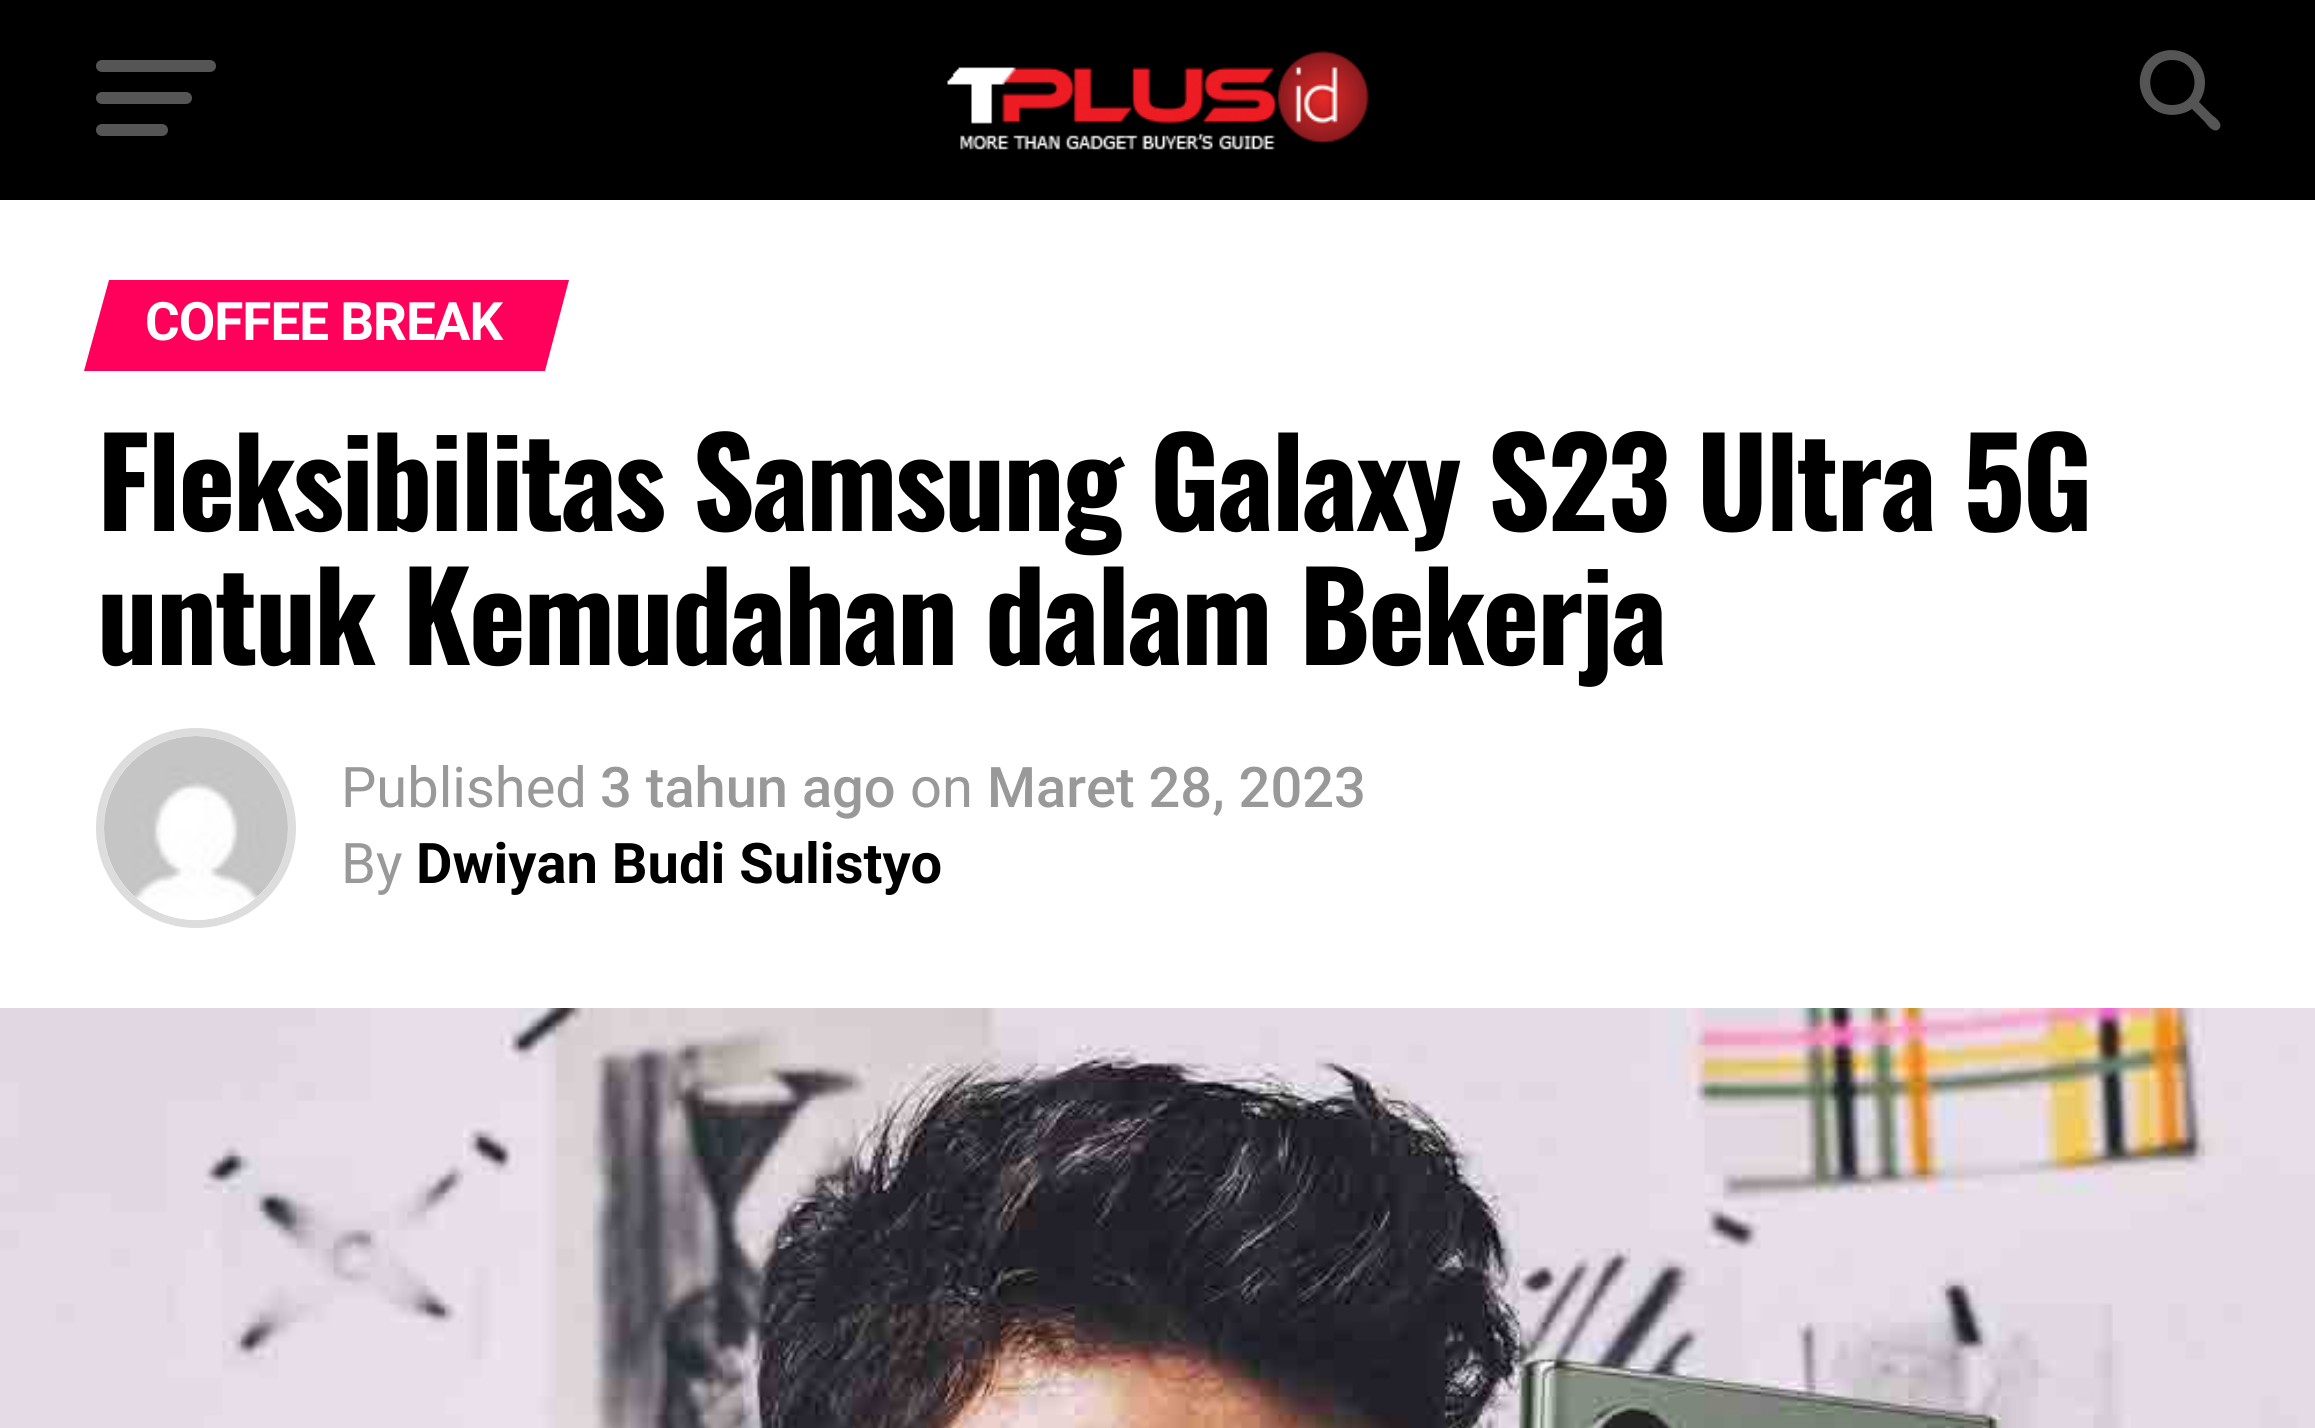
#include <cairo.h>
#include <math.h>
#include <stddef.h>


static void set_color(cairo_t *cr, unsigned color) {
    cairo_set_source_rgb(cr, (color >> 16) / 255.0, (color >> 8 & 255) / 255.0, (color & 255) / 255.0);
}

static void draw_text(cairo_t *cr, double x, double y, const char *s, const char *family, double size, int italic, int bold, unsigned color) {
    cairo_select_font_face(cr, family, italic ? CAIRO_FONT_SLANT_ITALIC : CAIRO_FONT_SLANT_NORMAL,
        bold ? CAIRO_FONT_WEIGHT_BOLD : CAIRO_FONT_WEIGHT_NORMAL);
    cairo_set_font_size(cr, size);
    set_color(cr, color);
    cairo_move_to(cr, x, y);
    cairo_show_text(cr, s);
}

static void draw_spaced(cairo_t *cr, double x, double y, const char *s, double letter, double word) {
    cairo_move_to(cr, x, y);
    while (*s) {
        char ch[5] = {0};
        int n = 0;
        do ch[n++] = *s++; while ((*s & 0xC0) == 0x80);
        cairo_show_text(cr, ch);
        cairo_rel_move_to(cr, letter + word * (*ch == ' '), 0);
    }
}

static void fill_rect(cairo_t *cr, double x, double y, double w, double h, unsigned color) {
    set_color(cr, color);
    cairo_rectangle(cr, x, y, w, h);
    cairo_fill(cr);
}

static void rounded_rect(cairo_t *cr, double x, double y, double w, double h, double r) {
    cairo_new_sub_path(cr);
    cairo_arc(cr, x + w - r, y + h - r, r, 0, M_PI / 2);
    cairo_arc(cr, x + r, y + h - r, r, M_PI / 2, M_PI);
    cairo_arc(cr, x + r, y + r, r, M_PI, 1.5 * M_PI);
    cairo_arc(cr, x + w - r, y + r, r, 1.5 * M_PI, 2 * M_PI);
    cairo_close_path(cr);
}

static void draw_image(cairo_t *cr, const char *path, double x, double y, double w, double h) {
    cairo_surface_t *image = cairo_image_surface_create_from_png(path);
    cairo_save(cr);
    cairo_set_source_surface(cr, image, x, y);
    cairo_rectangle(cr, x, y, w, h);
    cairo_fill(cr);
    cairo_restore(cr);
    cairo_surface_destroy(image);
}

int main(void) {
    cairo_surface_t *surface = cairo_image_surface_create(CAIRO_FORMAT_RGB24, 2315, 1428);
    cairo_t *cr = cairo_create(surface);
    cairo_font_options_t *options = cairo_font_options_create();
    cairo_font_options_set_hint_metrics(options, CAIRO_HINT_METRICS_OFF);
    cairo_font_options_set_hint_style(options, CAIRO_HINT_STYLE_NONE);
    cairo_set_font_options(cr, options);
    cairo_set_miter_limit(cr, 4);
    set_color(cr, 0xFFFFFF);
    cairo_paint(cr);
    fill_rect(cr, 0, 0, 2315, 200, 0x000000);
    set_color(cr, 0x555555);
    rounded_rect(cr, 96, 60, 120, 12, 6);
    cairo_fill(cr);
    rounded_rect(cr, 96, 92, 96, 12, 6);
    cairo_fill(cr);
    rounded_rect(cr, 96, 124, 72, 12, 6);
    cairo_fill(cr);
    draw_image(cr, "assets/img1.png", 947, 50, 422, 100);
    cairo_new_path(cr);
    cairo_move_to(cr, 2205, 82);
    cairo_curve_to(cr, 2205, 90, 2203, 96, 2199, 102);
    cairo_line_to(cr, 2212, 115);
    cairo_curve_to(cr, 2215, 117, 2224, 124, 2219, 129);
    cairo_curve_to(cr, 2214, 134, 2207, 125, 2205, 122);
    cairo_line_to(cr, 2192, 109);
    cairo_curve_to(cr, 2180, 117, 2163, 117, 2152, 108);
    cairo_curve_to(cr, 2145, 102, 2141, 94, 2140, 86);
    cairo_curve_to(cr, 2139, 78, 2141, 71, 2145, 64);
    cairo_curve_to(cr, 2163, 38, 2204, 51, 2205, 82);
    cairo_close_path(cr);
    cairo_move_to(cr, 2172, 105);
    cairo_curve_to(cr, 2202, 105, 2202, 60, 2172, 60);
    cairo_curve_to(cr, 2143, 60, 2143, 105, 2172, 105);
    cairo_close_path(cr);
    cairo_fill(cr);
    set_color(cr, 0xFF005B);
    cairo_new_path(cr);
    cairo_move_to(cr, 109, 280);
    cairo_line_to(cr, 569, 280);
    cairo_line_to(cr, 545, 371);
    cairo_line_to(cr, 84, 371);
    cairo_close_path(cr);
    cairo_fill(cr);
    cairo_select_font_face(cr, "Roboto", CAIRO_FONT_SLANT_NORMAL, CAIRO_FONT_WEIGHT_BOLD);
    cairo_set_font_size(cr, 53);
    set_color(cr, 0xFFFFFF);
    draw_spaced(cr, 145, 340, "COFFEE BREAK", -1, 0);
    cairo_select_font_face(cr, "Oswald", CAIRO_FONT_SLANT_NORMAL, CAIRO_FONT_WEIGHT_BOLD);
    cairo_set_font_size(cr, 121.6);
    set_color(cr, 0x000000);
    draw_spaced(cr, 97, 531, "Fleksibilitas Samsung Galaxy S23 Ultra 5G", -2.45, 0);
    draw_spaced(cr, 97, 665, "untuk Kemudahan dalam Bekerja", -2.45, 0);
    cairo_new_path(cr);
    cairo_arc(cr, 196, 828, 96, 0, 2 * M_PI);
    set_color(cr, 0xDDDDDD);
    cairo_set_line_width(cr, 8);
    cairo_stroke(cr);
    draw_image(cr, "assets/img2.png", 104, 736, 184, 184);
    draw_text(cr, 341, 807, "Published", "Roboto", 56, 0, 0, 0x999999);
    draw_text(cr, 600, 807, "3 tahun ago", "Roboto Medium", 56, 0, 0, 0x999999);
    draw_text(cr, 910, 807, "on", "Roboto", 56, 0, 0, 0x999999);
    draw_text(cr, 987, 807, "Maret 28, 2023", "Roboto Medium", 56, 0, 0, 0x999999);
    draw_text(cr, 341, 883, "By", "Roboto", 56, 0, 0, 0x999999);
    draw_text(cr, 416, 883, "Dwiyan Budi Sulistyo", "Roboto", 56, 0, 1, 0x000000);
    draw_image(cr, "assets/img3.png", 0, 1008, 2315, 420);
    cairo_surface_write_to_png(surface, "output.png");
    cairo_font_options_destroy(options);
    cairo_destroy(cr);
    cairo_surface_destroy(surface);
    return 0;
}
